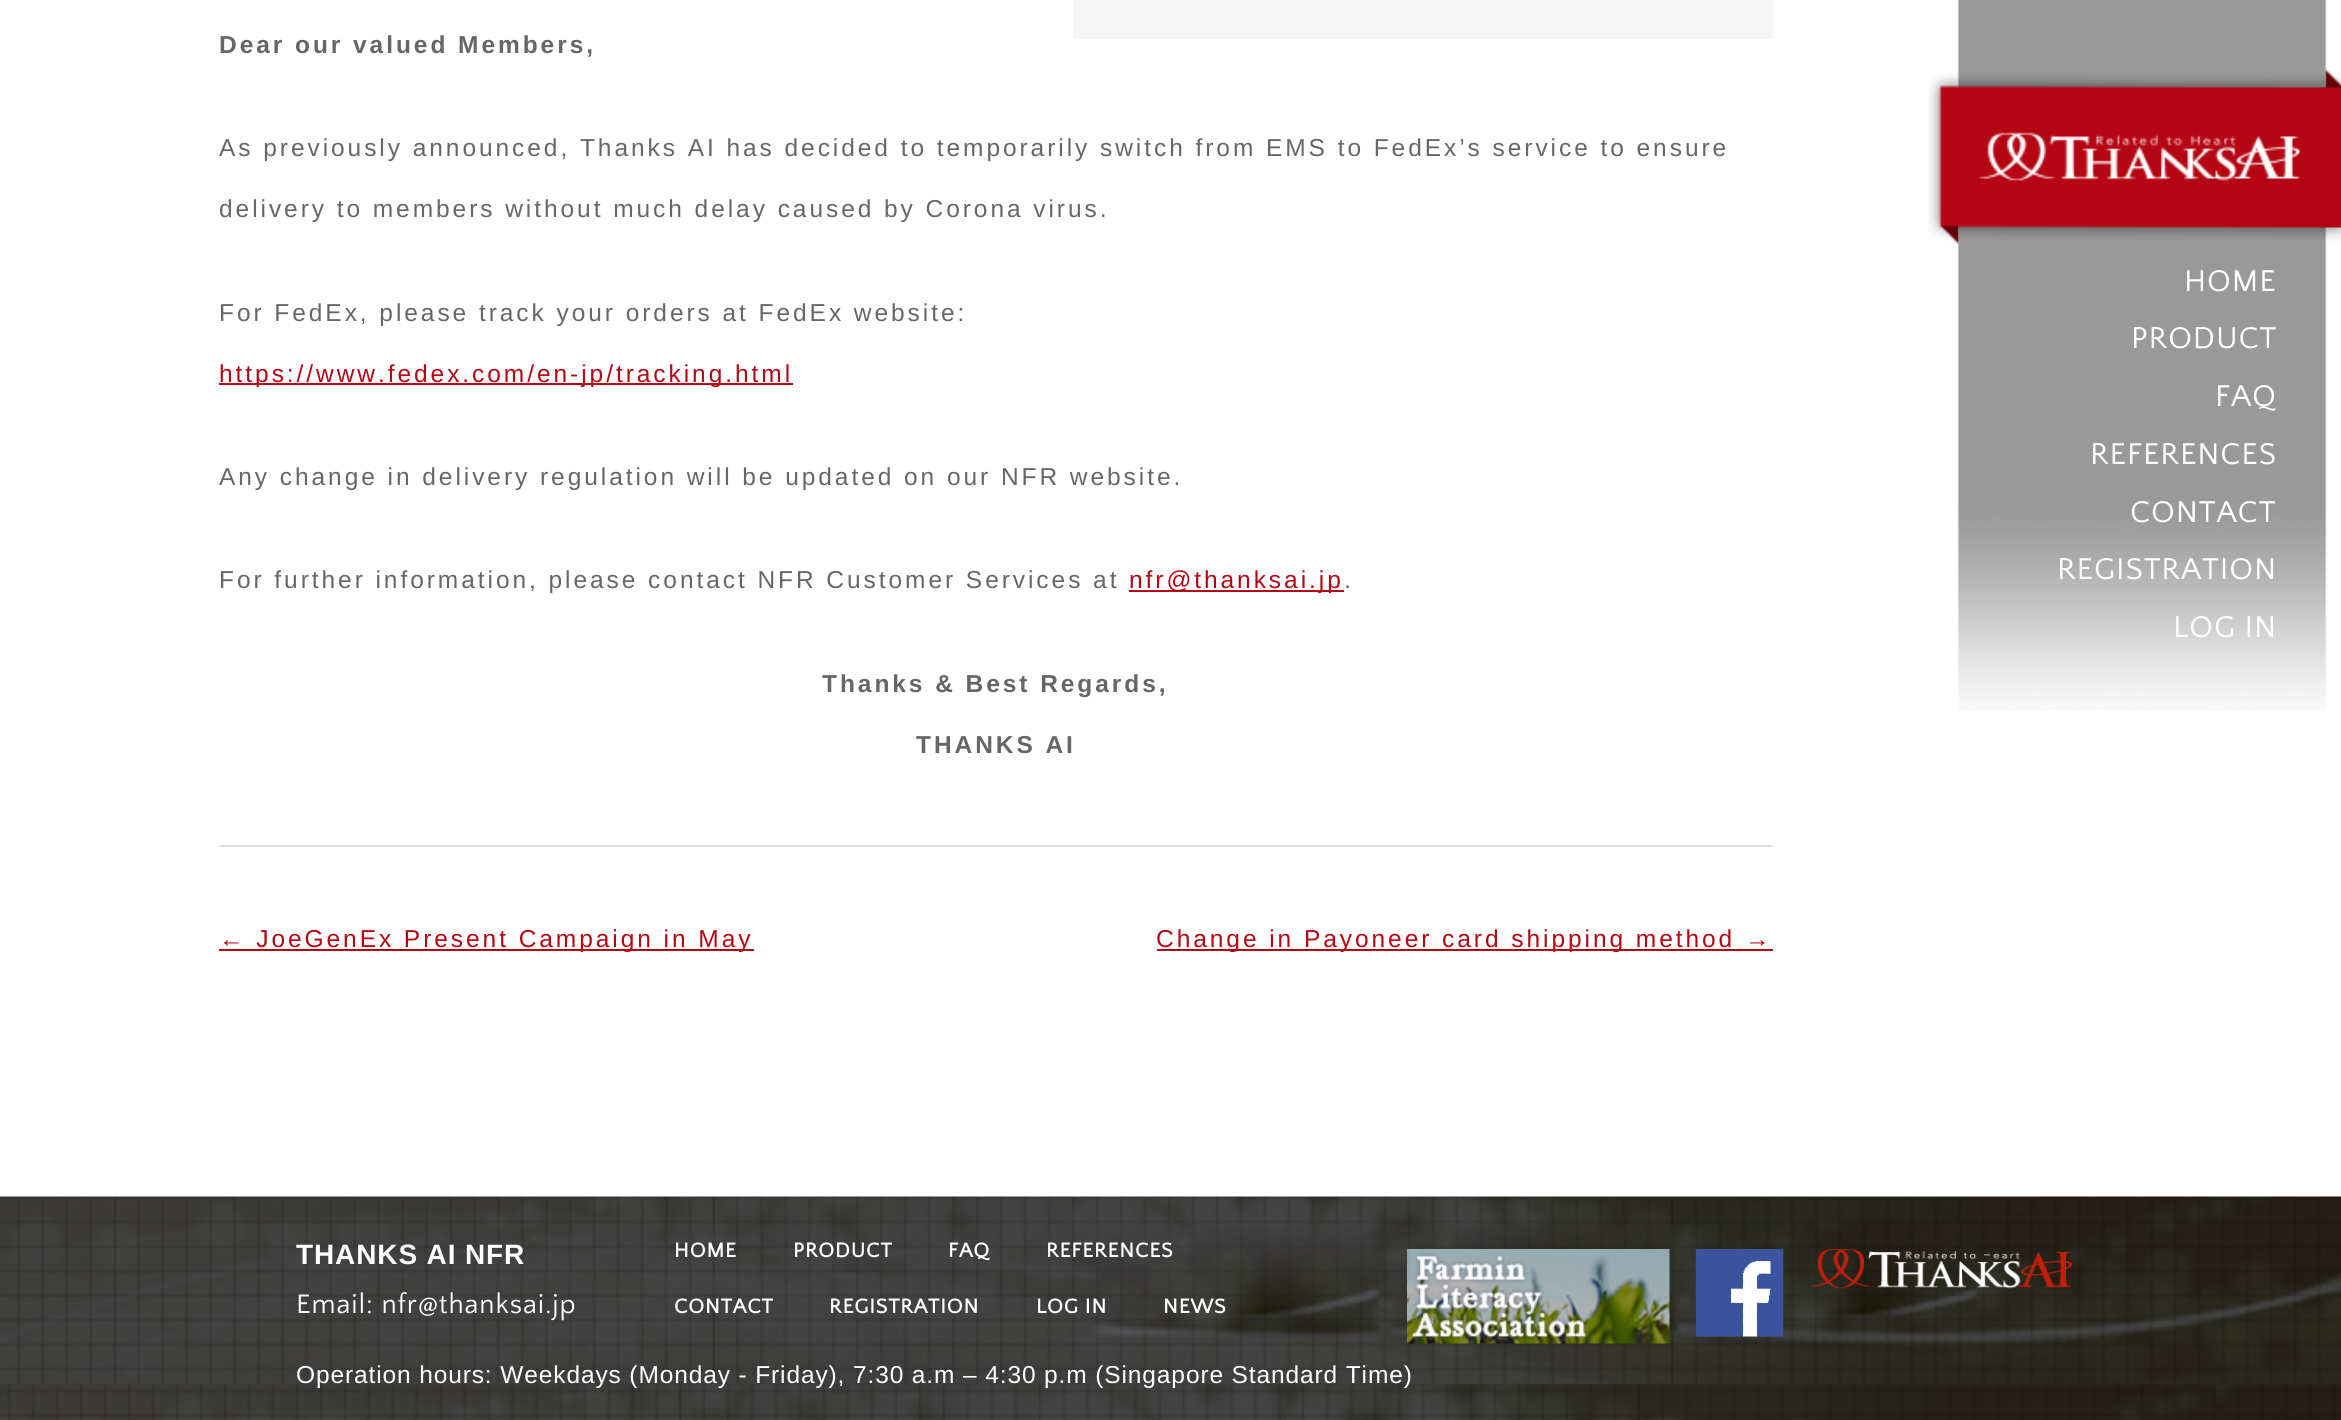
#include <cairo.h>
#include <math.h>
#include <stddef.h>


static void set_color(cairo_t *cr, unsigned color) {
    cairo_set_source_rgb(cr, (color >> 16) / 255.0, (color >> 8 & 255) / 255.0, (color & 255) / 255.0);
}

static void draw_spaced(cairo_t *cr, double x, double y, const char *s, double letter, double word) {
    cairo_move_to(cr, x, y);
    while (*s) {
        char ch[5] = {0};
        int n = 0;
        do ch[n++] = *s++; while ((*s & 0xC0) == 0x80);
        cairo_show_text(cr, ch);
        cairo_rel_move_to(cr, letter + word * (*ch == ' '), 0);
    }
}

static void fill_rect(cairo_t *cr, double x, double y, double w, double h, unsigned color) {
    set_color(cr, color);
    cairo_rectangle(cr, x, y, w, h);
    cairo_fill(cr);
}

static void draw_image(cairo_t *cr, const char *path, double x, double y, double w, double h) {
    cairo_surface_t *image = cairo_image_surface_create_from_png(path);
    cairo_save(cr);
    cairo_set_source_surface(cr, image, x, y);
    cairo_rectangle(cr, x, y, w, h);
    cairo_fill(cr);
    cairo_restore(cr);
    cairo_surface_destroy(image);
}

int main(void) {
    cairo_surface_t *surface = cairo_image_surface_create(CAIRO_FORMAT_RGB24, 2341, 1420);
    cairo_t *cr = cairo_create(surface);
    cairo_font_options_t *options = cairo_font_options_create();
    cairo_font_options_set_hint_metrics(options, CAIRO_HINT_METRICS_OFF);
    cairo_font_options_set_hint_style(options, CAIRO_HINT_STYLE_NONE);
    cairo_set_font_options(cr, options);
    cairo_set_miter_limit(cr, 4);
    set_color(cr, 0xFFFFFF);
    cairo_paint(cr);
    fill_rect(cr, 1073, 0, 700, 39, 0xF6F6F6);
    cairo_select_font_face(cr, "Liberation Sans", CAIRO_FONT_SLANT_NORMAL, CAIRO_FONT_WEIGHT_BOLD);
    cairo_set_font_size(cr, 24.5);
    set_color(cr, 0x666666);
    draw_spaced(cr, 219, 53, "Dear our valued Members,", 2.94, 0);
    cairo_select_font_face(cr, "Liberation Sans", CAIRO_FONT_SLANT_NORMAL, CAIRO_FONT_WEIGHT_NORMAL);
    draw_spaced(cr, 219, 156, "As previously announced, Thanks AI has decided to temporarily switch from EMS to FedEx’s service to ensure", 2.94, 0);
    draw_spaced(cr, 219, 217, "delivery to members without much delay caused by Corona virus.", 2.94, 0);
    draw_spaced(cr, 219, 321, "For FedEx, please track your orders at FedEx website:", 2.94, 0);
    fill_rect(cr, 219, 383, 574, 2, 0xB60613);
    draw_spaced(cr, 219, 382, "https://www.fedex.com/en-jp/tracking.html", 2.94, 0);
    set_color(cr, 0x666666);
    draw_spaced(cr, 219, 485, "Any change in delivery regulation will be updated on our NFR website.", 2.94, 0);
    draw_spaced(cr, 219, 588, "For further information, please contact NFR Customer Services at", 2.94, 0);
    fill_rect(cr, 1129, 590, 215, 2, 0xB60613);
    draw_spaced(cr, 1129, 588, "nfr@thanksai.jp", 2.94, 0);
    set_color(cr, 0x666666);
    draw_spaced(cr, 1344, 588, ".", 2.94, 0);
    cairo_select_font_face(cr, "Liberation Sans", CAIRO_FONT_SLANT_NORMAL, CAIRO_FONT_WEIGHT_BOLD);
    draw_spaced(cr, 822, 692, "Thanks & Best Regards,", 2.94, 0);
    draw_spaced(cr, 916, 753, "THANKS AI", 2.94, 0);
    fill_rect(cr, 219, 845, 1554, 2, 0xDDDDDD);
    fill_rect(cr, 219, 949, 535, 2, 0xB60613);
    cairo_select_font_face(cr, "Liberation Sans", CAIRO_FONT_SLANT_NORMAL, CAIRO_FONT_WEIGHT_NORMAL);
    draw_spaced(cr, 219, 947, "← JoeGenEx Present Campaign in May", 2.94, 0);
    fill_rect(cr, 1157, 949, 616, 2, 0xB60613);
    draw_spaced(cr, 1156, 947, "Change in Payoneer card shipping method →", 2.94, 0);
    draw_image(cr, "assets/img1.png", 1957, 0, 370, 711);
    draw_image(cr, "assets/img2.png", 1928, 70, 413, 174);
    cairo_select_font_face(cr, "Quattrocento Sans", CAIRO_FONT_SLANT_NORMAL, CAIRO_FONT_WEIGHT_NORMAL);
    cairo_set_font_size(cr, 31.5);
    set_color(cr, 0xFFFFFF);
    draw_spaced(cr, 2184, 291, "HOME", 0.88, 0);
    draw_spaced(cr, 2131, 348, "PRODUCT", 0.88, 0);
    draw_spaced(cr, 2215, 406, "FAQ", 0.88, 0);
    draw_spaced(cr, 2090, 464, "REFERENCES", 0.88, 0);
    draw_spaced(cr, 2130, 522, "CONTACT", 0.88, 0);
    draw_spaced(cr, 2057, 579, "REGISTRATION", 0.88, 0);
    draw_spaced(cr, 2173, 637, "LOG IN", 0.88, 0);
    draw_image(cr, "assets/img3.png", 0, 1196, 2341, 224);
    cairo_select_font_face(cr, "Liberation Sans", CAIRO_FONT_SLANT_NORMAL, CAIRO_FONT_WEIGHT_BOLD);
    cairo_set_font_size(cr, 28);
    draw_spaced(cr, 296, 1264, "THANKS AI NFR", 0.88, 0);
    cairo_select_font_face(cr, "Quattrocento Sans", CAIRO_FONT_SLANT_NORMAL, CAIRO_FONT_WEIGHT_NORMAL);
    draw_spaced(cr, 296, 1313, "Email: nfr@thanksai.jp", 0.88, 0);
    cairo_select_font_face(cr, "Quattrocento Sans", CAIRO_FONT_SLANT_NORMAL, CAIRO_FONT_WEIGHT_BOLD);
    cairo_set_font_size(cr, 21);
    draw_spaced(cr, 674, 1257, "HOME", 0.88, 0);
    draw_spaced(cr, 793, 1257, "PRODUCT", 0.88, 0);
    draw_spaced(cr, 948, 1257, "FAQ", 0.88, 0);
    draw_spaced(cr, 1046, 1257, "REFERENCES", 0.88, 0);
    draw_spaced(cr, 674, 1313, "CONTACT", 0.88, 0);
    draw_spaced(cr, 829, 1313, "REGISTRATION", 0.88, 0);
    draw_spaced(cr, 1036, 1313, "LOG IN", 0.88, 0);
    draw_spaced(cr, 1163, 1313, "NEWS", 0.88, 0);
    draw_image(cr, "assets/img4.png", 1407, 1249, 263, 95);
    draw_image(cr, "assets/img5.png", 1695, 1249, 89, 88);
    draw_image(cr, "assets/img6.png", 1810, 1249, 262, 40);
    cairo_select_font_face(cr, "Liberation Sans", CAIRO_FONT_SLANT_NORMAL, CAIRO_FONT_WEIGHT_NORMAL);
    cairo_set_font_size(cr, 24.5);
    draw_spaced(cr, 296, 1383, "Operation hours: Weekdays (Monday - Friday), 7:30 a.m – 4:30 p.m (Singapore Standard Time)", 0.88, 0);
    cairo_surface_write_to_png(surface, "output.png");
    cairo_font_options_destroy(options);
    cairo_destroy(cr);
    cairo_surface_destroy(surface);
    return 0;
}
